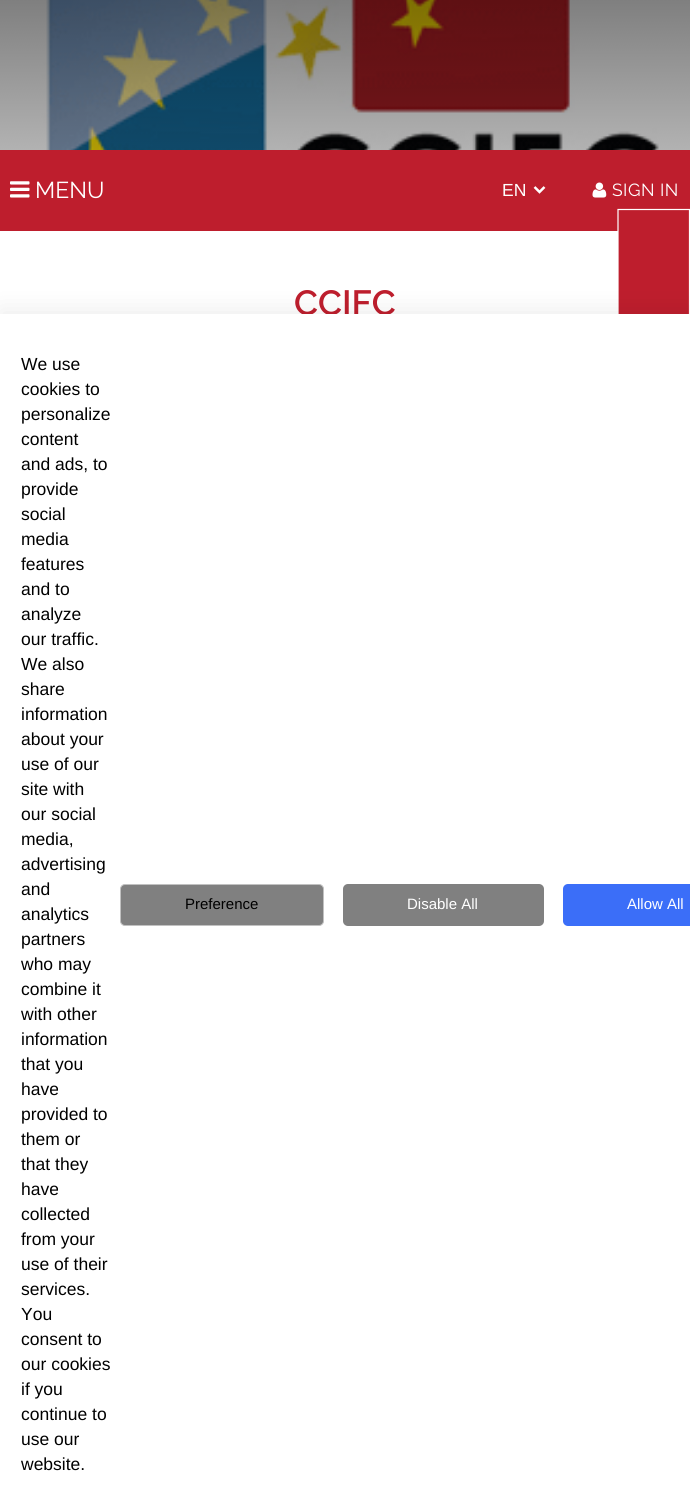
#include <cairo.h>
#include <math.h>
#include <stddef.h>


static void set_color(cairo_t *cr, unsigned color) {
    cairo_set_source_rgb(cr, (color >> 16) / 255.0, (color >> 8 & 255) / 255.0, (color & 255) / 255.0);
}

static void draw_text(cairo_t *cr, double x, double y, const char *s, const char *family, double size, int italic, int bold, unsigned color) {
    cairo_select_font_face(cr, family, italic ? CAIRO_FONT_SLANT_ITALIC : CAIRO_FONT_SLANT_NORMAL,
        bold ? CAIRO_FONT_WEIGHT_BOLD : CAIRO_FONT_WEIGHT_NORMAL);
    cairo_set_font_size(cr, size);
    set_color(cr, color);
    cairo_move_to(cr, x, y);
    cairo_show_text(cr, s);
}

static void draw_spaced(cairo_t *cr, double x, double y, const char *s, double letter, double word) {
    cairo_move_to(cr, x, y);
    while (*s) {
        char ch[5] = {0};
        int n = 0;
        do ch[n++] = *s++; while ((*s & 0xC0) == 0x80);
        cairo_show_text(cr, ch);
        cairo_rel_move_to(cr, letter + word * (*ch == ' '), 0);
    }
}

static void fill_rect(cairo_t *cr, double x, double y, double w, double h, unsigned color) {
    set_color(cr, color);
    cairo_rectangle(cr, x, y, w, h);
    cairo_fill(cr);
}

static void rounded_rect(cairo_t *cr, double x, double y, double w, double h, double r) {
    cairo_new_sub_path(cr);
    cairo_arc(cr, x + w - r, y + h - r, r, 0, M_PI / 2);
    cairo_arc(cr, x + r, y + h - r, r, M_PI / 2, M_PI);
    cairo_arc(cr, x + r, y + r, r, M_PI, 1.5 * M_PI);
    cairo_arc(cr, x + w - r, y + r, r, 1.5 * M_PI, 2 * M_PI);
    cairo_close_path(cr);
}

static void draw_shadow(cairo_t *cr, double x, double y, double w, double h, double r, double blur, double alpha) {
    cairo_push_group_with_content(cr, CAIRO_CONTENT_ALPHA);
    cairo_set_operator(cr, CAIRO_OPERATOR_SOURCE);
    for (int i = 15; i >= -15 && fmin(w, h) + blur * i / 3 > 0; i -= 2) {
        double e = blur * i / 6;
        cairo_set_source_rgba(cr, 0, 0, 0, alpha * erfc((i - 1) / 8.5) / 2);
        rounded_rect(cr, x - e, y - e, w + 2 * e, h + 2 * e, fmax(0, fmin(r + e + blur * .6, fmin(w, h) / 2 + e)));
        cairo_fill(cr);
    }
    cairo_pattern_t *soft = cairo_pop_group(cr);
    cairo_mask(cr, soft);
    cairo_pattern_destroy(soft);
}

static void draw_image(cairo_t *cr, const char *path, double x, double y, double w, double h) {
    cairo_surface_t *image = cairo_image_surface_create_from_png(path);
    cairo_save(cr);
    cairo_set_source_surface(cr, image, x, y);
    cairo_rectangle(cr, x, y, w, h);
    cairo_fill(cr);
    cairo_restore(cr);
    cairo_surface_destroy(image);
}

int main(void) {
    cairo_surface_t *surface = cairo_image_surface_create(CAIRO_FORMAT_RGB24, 690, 1494);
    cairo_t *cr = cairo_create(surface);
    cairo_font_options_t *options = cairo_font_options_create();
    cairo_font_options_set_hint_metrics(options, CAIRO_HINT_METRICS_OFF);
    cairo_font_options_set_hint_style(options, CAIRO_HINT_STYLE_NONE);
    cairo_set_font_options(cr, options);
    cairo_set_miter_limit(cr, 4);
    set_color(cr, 0xFFFFFF);
    cairo_paint(cr);
    draw_image(cr, "assets/img1.png", 0, 0, 690, 150);
    fill_rect(cr, 0, 150, 690, 81, 0xBE1E2D);
    draw_image(cr, "assets/img2.png", 10, 181, 20, 17);
    draw_text(cr, 35, 198, "MENU", "Raleway", 23, 0, 0, 0xFFFFFF);
    cairo_new_path(cr);
    cairo_move_to(cr, 534.5, 187);
    cairo_line_to(cr, 539.5, 192);
    cairo_line_to(cr, 544.5, 187);
    cairo_set_line_width(cr, 2.5);
    cairo_stroke(cr);
    draw_text(cr, 502, 196, "EN", "Liberation Sans", 17.5, 0, 0, 0xFFFFFF);
    draw_image(cr, "assets/img3.png", 592, 182, 15, 16);
    cairo_select_font_face(cr, "Raleway", CAIRO_FONT_SLANT_NORMAL, CAIRO_FONT_WEIGHT_NORMAL);
    draw_spaced(cr, 612, 196, "SIGN IN", 0.5, 0);
    draw_text(cr, 294, 315, "CCIFC", "Raleway SemiBold", 35, 0, 0, 0xBE1E2D);
    fill_rect(cr, 618, 231, 71, 83, 0xBE1E2D);
    cairo_new_path(cr);
    cairo_move_to(cr, 618, 500.5);
    cairo_line_to(cr, 618, 209.5);
    cairo_line_to(cr, 689.5, 209.5);
    cairo_line_to(cr, 689.5, 500.5);
    cairo_close_path(cr);
    set_color(cr, 0xFFFFFF);
    cairo_set_line_width(cr, 1.2);
    cairo_stroke(cr);
    set_color(cr, 0x000000);
    draw_shadow(cr, 0, 309, 690, 1181, 0, 12, 0.07);
    fill_rect(cr, 0, 314, 690, 1180, 0xFFFFFF);
    draw_text(cr, 21, 370, "We use", "Liberation Sans", 17.5, 0, 0, 0x000000);
    draw_text(cr, 21, 395, "cookies to", "Liberation Sans", 17.5, 0, 0, 0x000000);
    draw_text(cr, 21, 420, "personalize", "Liberation Sans", 17.5, 0, 0, 0x000000);
    draw_text(cr, 21, 445, "content", "Liberation Sans", 17.5, 0, 0, 0x000000);
    draw_text(cr, 21, 470, "and ads, to", "Liberation Sans", 17.5, 0, 0, 0x000000);
    draw_text(cr, 21, 495, "provide", "Liberation Sans", 17.5, 0, 0, 0x000000);
    draw_text(cr, 21, 520, "social", "Liberation Sans", 17.5, 0, 0, 0x000000);
    draw_text(cr, 21, 545, "media", "Liberation Sans", 17.5, 0, 0, 0x000000);
    draw_text(cr, 21, 570, "features", "Liberation Sans", 17.5, 0, 0, 0x000000);
    draw_text(cr, 21, 595, "and to", "Liberation Sans", 17.5, 0, 0, 0x000000);
    draw_text(cr, 21, 620, "analyze", "Liberation Sans", 17.5, 0, 0, 0x000000);
    draw_text(cr, 21, 645, "our traffic.", "Liberation Sans", 17.5, 0, 0, 0x000000);
    draw_text(cr, 21, 670, "We also", "Liberation Sans", 17.5, 0, 0, 0x000000);
    draw_text(cr, 21, 695, "share", "Liberation Sans", 17.5, 0, 0, 0x000000);
    draw_text(cr, 21, 720, "information", "Liberation Sans", 17.5, 0, 0, 0x000000);
    draw_text(cr, 21, 745, "about your", "Liberation Sans", 17.5, 0, 0, 0x000000);
    draw_text(cr, 21, 770, "use of our", "Liberation Sans", 17.5, 0, 0, 0x000000);
    draw_text(cr, 21, 795, "site with", "Liberation Sans", 17.5, 0, 0, 0x000000);
    draw_text(cr, 21, 820, "our social", "Liberation Sans", 17.5, 0, 0, 0x000000);
    draw_text(cr, 21, 845, "media,", "Liberation Sans", 17.5, 0, 0, 0x000000);
    draw_text(cr, 21, 870, "advertising", "Liberation Sans", 17.5, 0, 0, 0x000000);
    draw_text(cr, 21, 895, "and", "Liberation Sans", 17.5, 0, 0, 0x000000);
    draw_text(cr, 21, 920, "analytics", "Liberation Sans", 17.5, 0, 0, 0x000000);
    draw_text(cr, 21, 945, "partners", "Liberation Sans", 17.5, 0, 0, 0x000000);
    draw_text(cr, 21, 970, "who may", "Liberation Sans", 17.5, 0, 0, 0x000000);
    draw_text(cr, 21, 995, "combine it", "Liberation Sans", 17.5, 0, 0, 0x000000);
    draw_text(cr, 21, 1020, "with other", "Liberation Sans", 17.5, 0, 0, 0x000000);
    draw_text(cr, 21, 1045, "information", "Liberation Sans", 17.5, 0, 0, 0x000000);
    draw_text(cr, 21, 1070, "that you", "Liberation Sans", 17.5, 0, 0, 0x000000);
    draw_text(cr, 21, 1095, "have", "Liberation Sans", 17.5, 0, 0, 0x000000);
    draw_text(cr, 21, 1120, "provided to", "Liberation Sans", 17.5, 0, 0, 0x000000);
    draw_text(cr, 21, 1145, "them or", "Liberation Sans", 17.5, 0, 0, 0x000000);
    draw_text(cr, 21, 1170, "that they", "Liberation Sans", 17.5, 0, 0, 0x000000);
    draw_text(cr, 21, 1195, "have", "Liberation Sans", 17.5, 0, 0, 0x000000);
    draw_text(cr, 21, 1220, "collected", "Liberation Sans", 17.5, 0, 0, 0x000000);
    draw_text(cr, 21, 1245, "from your", "Liberation Sans", 17.5, 0, 0, 0x000000);
    draw_text(cr, 21, 1270, "use of their", "Liberation Sans", 17.5, 0, 0, 0x000000);
    draw_text(cr, 21, 1295, "services.", "Liberation Sans", 17.5, 0, 0, 0x000000);
    draw_text(cr, 21, 1320, "You", "Liberation Sans", 17.5, 0, 0, 0x000000);
    draw_text(cr, 21, 1345, "consent to", "Liberation Sans", 17.5, 0, 0, 0x000000);
    draw_text(cr, 21, 1370, "our cookies", "Liberation Sans", 17.5, 0, 0, 0x000000);
    draw_text(cr, 21, 1395, "if you", "Liberation Sans", 17.5, 0, 0, 0x000000);
    draw_text(cr, 21, 1420, "continue to", "Liberation Sans", 17.5, 0, 0, 0x000000);
    draw_text(cr, 21, 1445, "use our", "Liberation Sans", 17.5, 0, 0, 0x000000);
    draw_text(cr, 21, 1470, "website.", "Liberation Sans", 17.5, 0, 0, 0x000000);
    set_color(cr, 0x808080);
    rounded_rect(cr, 120.5, 884.5, 203, 41, 4.5);
    cairo_fill_preserve(cr);
    set_color(cr, 0xC1C1C1);
    cairo_set_line_width(cr, 1);
    cairo_stroke(cr);
    draw_text(cr, 185, 909, "Preference", "Liberation Sans", 15, 0, 0, 0x000000);
    set_color(cr, 0x808080);
    rounded_rect(cr, 343, 884, 201, 42, 5);
    cairo_fill(cr);
    draw_text(cr, 407, 909, "Disable All", "Liberation Sans", 15, 0, 0, 0xFFFFFF);
    set_color(cr, 0x3B6EF8);
    rounded_rect(cr, 563, 884, 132, 42, 5);
    cairo_fill(cr);
    draw_text(cr, 627, 909, "Allow All", "Liberation Sans", 15, 0, 0, 0xFFFFFF);
    cairo_surface_write_to_png(surface, "output.png");
    cairo_font_options_destroy(options);
    cairo_destroy(cr);
    cairo_surface_destroy(surface);
    return 0;
}
